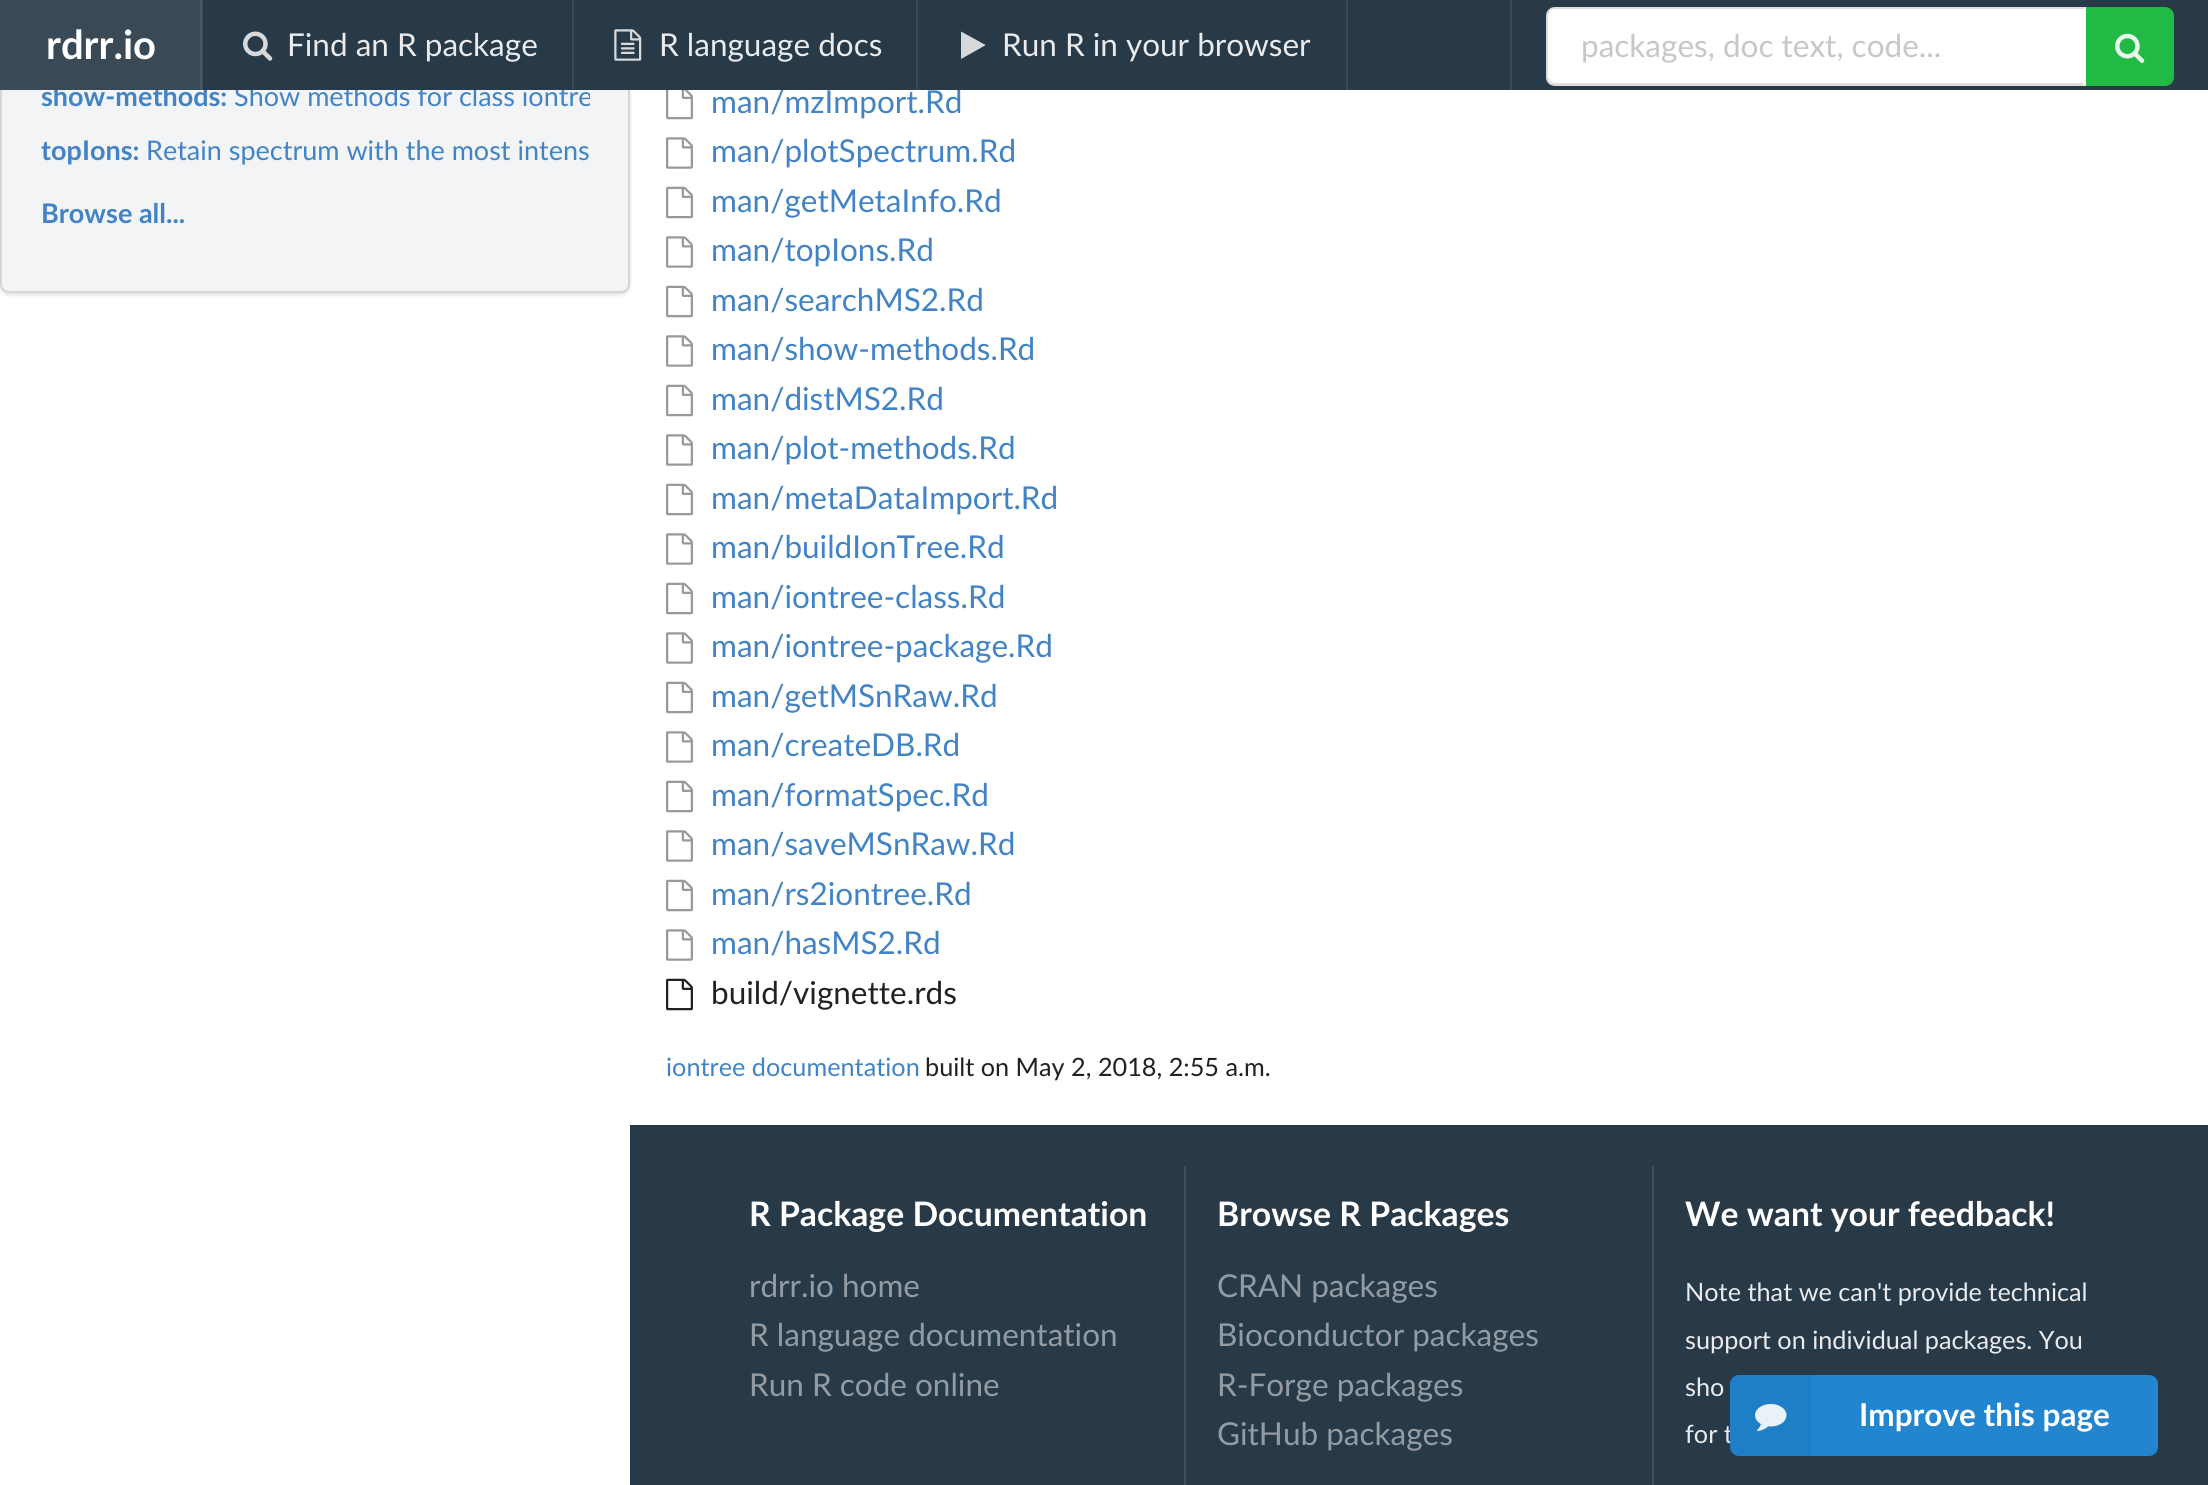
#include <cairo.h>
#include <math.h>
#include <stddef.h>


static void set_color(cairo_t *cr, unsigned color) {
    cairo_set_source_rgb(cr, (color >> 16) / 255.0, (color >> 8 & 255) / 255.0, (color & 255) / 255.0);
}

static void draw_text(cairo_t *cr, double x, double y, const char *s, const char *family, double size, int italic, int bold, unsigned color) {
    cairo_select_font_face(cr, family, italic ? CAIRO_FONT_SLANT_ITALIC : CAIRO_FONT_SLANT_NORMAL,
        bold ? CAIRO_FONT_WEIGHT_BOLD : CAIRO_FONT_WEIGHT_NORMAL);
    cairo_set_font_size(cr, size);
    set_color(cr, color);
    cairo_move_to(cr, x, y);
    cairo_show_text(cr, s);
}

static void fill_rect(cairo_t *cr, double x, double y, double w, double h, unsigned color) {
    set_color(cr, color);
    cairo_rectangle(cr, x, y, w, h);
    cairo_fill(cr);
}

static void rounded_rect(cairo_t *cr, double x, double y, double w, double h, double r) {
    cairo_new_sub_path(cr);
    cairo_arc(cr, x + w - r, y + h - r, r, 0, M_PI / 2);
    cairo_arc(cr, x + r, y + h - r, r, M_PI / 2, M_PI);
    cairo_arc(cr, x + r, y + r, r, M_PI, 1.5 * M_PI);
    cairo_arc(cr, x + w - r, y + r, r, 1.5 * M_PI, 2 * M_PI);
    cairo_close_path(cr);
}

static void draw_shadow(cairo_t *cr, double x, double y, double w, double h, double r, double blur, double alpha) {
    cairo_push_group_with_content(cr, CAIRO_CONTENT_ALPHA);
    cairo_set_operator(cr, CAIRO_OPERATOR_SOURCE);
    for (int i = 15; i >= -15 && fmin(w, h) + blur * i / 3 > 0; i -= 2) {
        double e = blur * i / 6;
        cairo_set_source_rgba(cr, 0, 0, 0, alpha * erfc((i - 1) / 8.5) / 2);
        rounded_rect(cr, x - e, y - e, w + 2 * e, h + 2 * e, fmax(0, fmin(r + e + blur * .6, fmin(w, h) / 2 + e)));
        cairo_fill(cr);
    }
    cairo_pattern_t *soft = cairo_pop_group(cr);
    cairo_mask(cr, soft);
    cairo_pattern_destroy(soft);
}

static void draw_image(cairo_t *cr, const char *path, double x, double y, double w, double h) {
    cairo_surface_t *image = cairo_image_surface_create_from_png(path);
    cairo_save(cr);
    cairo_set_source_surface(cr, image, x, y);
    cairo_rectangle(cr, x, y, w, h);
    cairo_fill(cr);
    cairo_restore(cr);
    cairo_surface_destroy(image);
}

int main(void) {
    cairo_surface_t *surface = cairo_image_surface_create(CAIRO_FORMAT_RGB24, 2208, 1485);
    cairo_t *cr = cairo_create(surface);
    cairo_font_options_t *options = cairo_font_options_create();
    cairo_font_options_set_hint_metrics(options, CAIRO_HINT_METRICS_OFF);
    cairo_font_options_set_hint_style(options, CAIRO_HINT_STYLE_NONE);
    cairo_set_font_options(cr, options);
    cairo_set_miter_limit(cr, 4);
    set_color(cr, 0xFFFFFF);
    cairo_paint(cr);
    set_color(cr, 0x222426);
    draw_shadow(cr, 0, -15, 630, 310, 9, 2, 0.15);
    set_color(cr, 0xF3F4F5);
    rounded_rect(cr, 0, -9, 630, 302, 9);
    cairo_fill(cr);
    rounded_rect(cr, 1, -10, 628, 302, 8);
    cairo_set_source_rgba(cr, 0.133, 0.141, 0.149, 0.15);
    cairo_stroke(cr);
    draw_text(cr, 41, 106, "show-methods:", "Lato", 27, 0, 1, 0x4183C4);
    cairo_save(cr);
    cairo_rectangle(cr, 41, 70, 549, 54);
    cairo_clip(cr);
    draw_text(cr, 234, 106, "Show methods for class iontre", "Lato", 27, 0, 0, 0x4183C4);
    cairo_restore(cr);
    draw_text(cr, 711, 113, "man/mzImport.Rd", "Lato", 31.5, 0, 0, 0x4183C4);
    fill_rect(cr, 203, 0, 2005, 90, 0x283947);
    fill_rect(cr, 0, 0, 203, 90, 0x394956);
    draw_text(cr, 46, 59, "rdrr.io", "Lato", 40, 0, 1, 0xFFFFFF);
    fill_rect(cr, 200, 0, 2, 90, 0x495864);
    draw_image(cr, "assets/img1.png", 243, 31, 30, 30);
    draw_text(cr, 287, 56, "Find an R package", "Lato", 31.5, 0, 0, 0xEAEBED);
    fill_rect(cr, 572, 0, 2, 90, 0x394956);
    draw_image(cr, "assets/img2.png", 614, 29, 28, 32);
    draw_text(cr, 659, 56, "R language docs", "Lato", 31.5, 0, 0, 0xEAEBED);
    fill_rect(cr, 916, 0, 2, 90, 0x394956);
    set_color(cr, 0xD7D9DC);
    cairo_new_path(cr);
    cairo_move_to(cr, 985, 45.5);
    cairo_line_to(cr, 965.5, 56.5);
    cairo_curve_to(cr, 965, 56.5, 961.5, 59.5, 961, 58.5);
    cairo_line_to(cr, 961, 32);
    cairo_line_to(cr, 961, 31.5);
    cairo_line_to(cr, 981, 42.5);
    cairo_line_to(cr, 985.5, 45);
    cairo_close_path(cr);
    cairo_fill(cr);
    draw_text(cr, 1002, 56, "Run R in your browser", "Lato", 31.5, 0, 0, 0xEAEBED);
    fill_rect(cr, 1346, 0, 2, 90, 0x394956);
    fill_rect(cr, 1510, 0, 2, 90, 0x394956);
    set_color(cr, 0xFFFFFF);
    cairo_new_path(cr);
    cairo_move_to(cr, 1555, 7);
    cairo_line_to(cr, 2086, 7);
    cairo_line_to(cr, 2086, 86);
    cairo_line_to(cr, 1555, 86);
    cairo_curve_to(cr, 1550, 86, 1546, 82, 1546, 77);
    cairo_line_to(cr, 1546, 16);
    cairo_curve_to(cr, 1546, 11, 1550, 7, 1555, 7);
    cairo_close_path(cr);
    cairo_fill(cr);
    cairo_set_source_rgba(cr, 0.133, 0.141, 0.149, 0.15);
    cairo_new_path(cr);
    cairo_move_to(cr, 1555, 7);
    cairo_curve_to(cr, 1552, 7, 1550, 8, 1549, 10);
    cairo_line_to(cr, 1550, 11);
    cairo_curve_to(cr, 1551, 10, 1553, 9, 1555, 9);
    cairo_line_to(cr, 2084, 9);
    cairo_line_to(cr, 2086, 7);
    cairo_close_path(cr);
    cairo_fill(cr);
    cairo_new_path(cr);
    cairo_move_to(cr, 2086, 86);
    cairo_line_to(cr, 1552, 86);
    cairo_line_to(cr, 1549, 83);
    cairo_line_to(cr, 1550, 81);
    cairo_curve_to(cr, 1551, 82, 1553, 83, 1555, 83);
    cairo_line_to(cr, 2083, 83);
    cairo_close_path(cr);
    cairo_fill(cr);
    cairo_new_path(cr);
    cairo_move_to(cr, 1549, 10);
    cairo_curve_to(cr, 1547, 11, 1546, 14, 1546, 16);
    cairo_line_to(cr, 1546, 76);
    cairo_curve_to(cr, 1546, 78, 1547, 81, 1549, 83);
    cairo_line_to(cr, 1550, 81);
    cairo_curve_to(cr, 1549, 80, 1548, 78, 1548, 76);
    cairo_line_to(cr, 1548, 16);
    cairo_curve_to(cr, 1548, 14, 1549, 12, 1550, 11);
    cairo_close_path(cr);
    cairo_fill(cr);
    draw_text(cr, 1581, 57, "packages, doc text, code...", "Lato", 31.5, 0, 0, 0xC7C7C7);
    set_color(cr, 0x21BA45);
    cairo_new_path(cr);
    cairo_move_to(cr, 2086, 7);
    cairo_line_to(cr, 2165, 7);
    cairo_curve_to(cr, 2170, 7, 2174, 11, 2174, 16);
    cairo_line_to(cr, 2174, 77);
    cairo_curve_to(cr, 2174, 82, 2170, 86, 2165, 86);
    cairo_line_to(cr, 2086, 86);
    cairo_close_path(cr);
    cairo_fill(cr);
    draw_image(cr, "assets/img3.png", 2115, 33, 30, 30);
    draw_text(cr, 41, 160, "topIons:", "Lato", 27, 0, 1, 0x4183C4);
    draw_text(cr, 146, 160, "Retain spectrum with the most intens", "Lato", 27, 0, 0, 0x4183C4);
    draw_text(cr, 41, 223, "Browse all...", "Lato", 27, 0, 1, 0x4183C4);
    draw_image(cr, "assets/img4.png", 666, 90, 27, 30);
    draw_image(cr, "assets/img5.png", 666, 137, 27, 32);
    draw_text(cr, 711, 162, "man/plotSpectrum.Rd", "Lato", 31.5, 0, 0, 0x4183C4);
    draw_image(cr, "assets/img6.png", 666, 186, 27, 33);
    draw_text(cr, 711, 212, "man/getMetaInfo.Rd", "Lato", 31.5, 0, 0, 0x4183C4);
    draw_image(cr, "assets/img5.png", 666, 236, 27, 32);
    draw_text(cr, 711, 261, "man/topIons.Rd", "Lato", 31.5, 0, 0, 0x4183C4);
    draw_image(cr, "assets/img6.png", 666, 285, 27, 33);
    draw_text(cr, 711, 311, "man/searchMS2.Rd", "Lato", 31.5, 0, 0, 0x4183C4);
    draw_image(cr, "assets/img5.png", 666, 335, 27, 32);
    draw_text(cr, 711, 360, "man/show-methods.Rd", "Lato", 31.5, 0, 0, 0x4183C4);
    draw_image(cr, "assets/img6.png", 666, 384, 27, 33);
    draw_text(cr, 711, 410, "man/distMS2.Rd", "Lato", 31.5, 0, 0, 0x4183C4);
    draw_image(cr, "assets/img5.png", 666, 434, 27, 32);
    draw_text(cr, 711, 459, "man/plot-methods.Rd", "Lato", 31.5, 0, 0, 0x4183C4);
    draw_image(cr, "assets/img6.png", 666, 483, 27, 33);
    draw_text(cr, 711, 509, "man/metaDataImport.Rd", "Lato", 31.5, 0, 0, 0x4183C4);
    draw_image(cr, "assets/img5.png", 666, 533, 27, 32);
    draw_text(cr, 711, 558, "man/buildIonTree.Rd", "Lato", 31.5, 0, 0, 0x4183C4);
    draw_image(cr, "assets/img6.png", 666, 582, 27, 33);
    draw_text(cr, 711, 608, "man/iontree-class.Rd", "Lato", 31.5, 0, 0, 0x4183C4);
    draw_image(cr, "assets/img5.png", 666, 632, 27, 32);
    draw_text(cr, 711, 657, "man/iontree-package.Rd", "Lato", 31.5, 0, 0, 0x4183C4);
    draw_image(cr, "assets/img6.png", 666, 681, 27, 33);
    draw_text(cr, 711, 707, "man/getMSnRaw.Rd", "Lato", 31.5, 0, 0, 0x4183C4);
    draw_image(cr, "assets/img5.png", 666, 731, 27, 32);
    draw_text(cr, 711, 756, "man/createDB.Rd", "Lato", 31.5, 0, 0, 0x4183C4);
    draw_image(cr, "assets/img6.png", 666, 780, 27, 33);
    draw_text(cr, 711, 806, "man/formatSpec.Rd", "Lato", 31.5, 0, 0, 0x4183C4);
    draw_image(cr, "assets/img5.png", 666, 830, 27, 32);
    draw_text(cr, 711, 855, "man/saveMSnRaw.Rd", "Lato", 31.5, 0, 0, 0x4183C4);
    draw_image(cr, "assets/img6.png", 666, 879, 27, 33);
    draw_text(cr, 711, 905, "man/rs2iontree.Rd", "Lato", 31.5, 0, 0, 0x4183C4);
    draw_image(cr, "assets/img5.png", 666, 929, 27, 32);
    draw_text(cr, 711, 954, "man/hasMS2.Rd", "Lato", 31.5, 0, 0, 0x4183C4);
    draw_image(cr, "assets/img7.png", 666, 978, 27, 33);
    draw_text(cr, 711, 1004, "build/vignette.rds", "Lato", 31.5, 0, 0, 0x212121);
    draw_text(cr, 666, 1076, "iontree documentation", "Lato", 25.25, 0, 0, 0x4183C4);
    draw_text(cr, 925, 1076, "built on May 2, 2018, 2:55 a.m.", "Lato", 25.25, 0, 0, 0x212121);
    fill_rect(cr, 630, 1125, 1578, 360, 0x283947);
    draw_text(cr, 749, 1226, "R Package Documentation", "Lato", 33.75, 0, 1, 0xFFFFFF);
    draw_text(cr, 749, 1297, "rdrr.io home", "Lato", 31.5, 0, 0, 0x949CA3);
    draw_text(cr, 749, 1346, "R language documentation", "Lato", 31.5, 0, 0, 0x949CA3);
    draw_text(cr, 749, 1396, "Run R code online", "Lato", 31.5, 0, 0, 0x949CA3);
    set_color(cr, 0x3E4D59);
    cairo_new_path(cr);
    cairo_move_to(cr, 1184, 1166);
    cairo_line_to(cr, 1184, 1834);
    cairo_line_to(cr, 1652, 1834);
    cairo_line_to(cr, 1186, 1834);
    cairo_line_to(cr, 1186, 1166);
    cairo_close_path(cr);
    cairo_fill(cr);
    draw_text(cr, 1217, 1226, "Browse R Packages", "Lato", 33.75, 0, 1, 0xFFFFFF);
    draw_text(cr, 1217, 1297, "CRAN packages", "Lato", 31.5, 0, 0, 0x949CA3);
    draw_text(cr, 1217, 1346, "Bioconductor packages", "Lato", 31.5, 0, 0, 0x949CA3);
    draw_text(cr, 1217, 1396, "R-Forge packages", "Lato", 31.5, 0, 0, 0x949CA3);
    draw_text(cr, 1217, 1445, "GitHub packages", "Lato", 31.5, 0, 0, 0x949CA3);
    set_color(cr, 0x3E4D59);
    cairo_new_path(cr);
    cairo_move_to(cr, 1652, 1166);
    cairo_line_to(cr, 1652, 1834);
    cairo_line_to(cr, 2120, 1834);
    cairo_line_to(cr, 1654, 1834);
    cairo_line_to(cr, 1654, 1166);
    cairo_close_path(cr);
    cairo_fill(cr);
    draw_text(cr, 1685, 1226, "We want your feedback!", "Lato", 33.75, 0, 1, 0xFFFFFF);
    draw_text(cr, 1685, 1301, "Note that we can't provide technical", "Lato", 25.25, 0, 0, 0xEAEBED);
    draw_text(cr, 1685, 1349, "support on individual packages. You", "Lato", 25.25, 0, 0, 0xEAEBED);
    draw_text(cr, 1685, 1396, "sho", "Lato", 25.25, 0, 0, 0xEAEBED);
    draw_text(cr, 1685, 1443, "for t", "Lato", 25.25, 0, 0, 0xEAEBED);
    set_color(cr, 0x2185D0);
    rounded_rect(cr, 1730, 1375, 428, 81, 9);
    cairo_fill(cr);
    cairo_set_source_rgba(cr, 0, 0, 0, 0.05);
    cairo_rectangle(cr, 1730, 1375, 81, 81);
    cairo_fill(cr);
    draw_image(cr, "assets/img8.png", 1755, 1404, 32, 27);
    draw_text(cr, 1859, 1426, "Improve this page", "Lato", 31.5, 0, 1, 0xFFFFFF);
    cairo_surface_write_to_png(surface, "output.png");
    cairo_font_options_destroy(options);
    cairo_destroy(cr);
    cairo_surface_destroy(surface);
    return 0;
}
